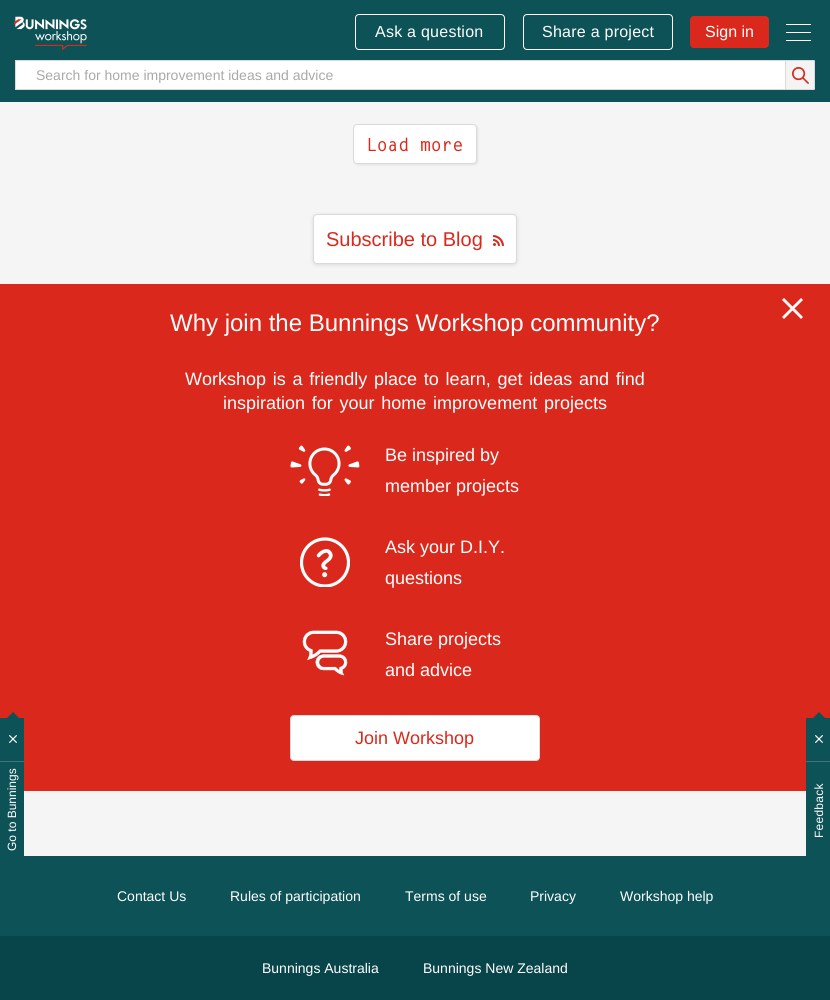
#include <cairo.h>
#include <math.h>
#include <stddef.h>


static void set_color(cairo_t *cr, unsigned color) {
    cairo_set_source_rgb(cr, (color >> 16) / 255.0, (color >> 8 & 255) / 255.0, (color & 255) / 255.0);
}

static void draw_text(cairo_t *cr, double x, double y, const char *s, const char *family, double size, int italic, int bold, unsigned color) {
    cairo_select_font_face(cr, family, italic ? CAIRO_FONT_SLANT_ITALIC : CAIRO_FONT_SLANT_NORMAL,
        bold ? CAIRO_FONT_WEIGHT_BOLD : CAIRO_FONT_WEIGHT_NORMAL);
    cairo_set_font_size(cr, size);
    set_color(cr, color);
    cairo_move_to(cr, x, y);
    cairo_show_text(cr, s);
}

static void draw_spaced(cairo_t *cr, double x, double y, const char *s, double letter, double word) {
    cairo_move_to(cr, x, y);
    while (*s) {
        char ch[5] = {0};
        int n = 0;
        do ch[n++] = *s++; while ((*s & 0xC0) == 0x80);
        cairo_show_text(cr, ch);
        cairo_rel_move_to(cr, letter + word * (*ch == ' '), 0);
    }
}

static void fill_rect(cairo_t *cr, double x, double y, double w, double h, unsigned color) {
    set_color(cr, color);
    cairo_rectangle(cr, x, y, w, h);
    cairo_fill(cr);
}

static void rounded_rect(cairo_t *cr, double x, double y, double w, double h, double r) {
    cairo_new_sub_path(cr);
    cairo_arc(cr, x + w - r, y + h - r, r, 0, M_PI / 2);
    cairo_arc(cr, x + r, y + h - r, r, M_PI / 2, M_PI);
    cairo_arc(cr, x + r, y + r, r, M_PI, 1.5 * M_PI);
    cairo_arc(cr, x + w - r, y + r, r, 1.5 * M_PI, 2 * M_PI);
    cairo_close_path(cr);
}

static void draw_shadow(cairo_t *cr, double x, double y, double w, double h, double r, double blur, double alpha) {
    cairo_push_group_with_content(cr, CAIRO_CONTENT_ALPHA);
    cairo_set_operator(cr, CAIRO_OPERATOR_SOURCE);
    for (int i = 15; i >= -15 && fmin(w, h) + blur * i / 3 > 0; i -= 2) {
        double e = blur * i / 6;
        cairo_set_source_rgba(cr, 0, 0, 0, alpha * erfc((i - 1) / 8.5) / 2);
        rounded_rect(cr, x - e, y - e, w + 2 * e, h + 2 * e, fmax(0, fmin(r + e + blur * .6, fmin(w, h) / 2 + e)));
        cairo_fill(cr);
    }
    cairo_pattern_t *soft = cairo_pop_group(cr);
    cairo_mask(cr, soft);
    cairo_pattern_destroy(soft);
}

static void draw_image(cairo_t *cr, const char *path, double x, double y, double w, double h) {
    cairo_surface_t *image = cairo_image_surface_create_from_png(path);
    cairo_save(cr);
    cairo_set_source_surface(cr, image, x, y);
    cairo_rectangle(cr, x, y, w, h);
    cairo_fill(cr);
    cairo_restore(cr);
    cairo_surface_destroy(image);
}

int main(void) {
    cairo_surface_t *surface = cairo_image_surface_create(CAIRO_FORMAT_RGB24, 830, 1000);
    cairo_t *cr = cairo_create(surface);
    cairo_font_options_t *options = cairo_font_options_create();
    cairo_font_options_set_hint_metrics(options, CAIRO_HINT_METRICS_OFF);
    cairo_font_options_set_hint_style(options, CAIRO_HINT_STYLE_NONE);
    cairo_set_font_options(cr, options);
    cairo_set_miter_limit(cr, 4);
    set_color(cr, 0xF5F5F5);
    cairo_paint(cr);
    fill_rect(cr, 0, 284, 830, 507, 0xDA291C);
    fill_rect(cr, 0, 718, 24, 138, 0x0D5257);
    cairo_new_path(cr);
    cairo_move_to(cr, 21, 720);
    cairo_line_to(cr, 5, 720);
    cairo_line_to(cr, 13, 712);
    cairo_close_path(cr);
    cairo_fill(cr);
    draw_image(cr, "assets/img1.png", 9, 735, 8, 8);
    fill_rect(cr, 0, 761, 24, 1, 0x3D7579);
    cairo_save(cr);
    cairo_translate(cr, 16, 851);
    cairo_rotate(cr, -90 * M_PI / 180);
    draw_text(cr, 0, 0, "Go to Bunnings", "Liberation Sans", 12, 0, 0, 0xFFFFFF);
    cairo_restore(cr);
    fill_rect(cr, 0, 0, 830, 102, 0x0D5257);
    draw_image(cr, "assets/img2.png", 14, 16, 73, 35);
    fill_rect(cr, 786, 24, 25, 1, 0xFFFFFF);
    fill_rect(cr, 786, 32, 25, 1, 0xFFFFFF);
    fill_rect(cr, 786, 40, 25, 1, 0xFFFFFF);
    rounded_rect(cr, 355.5, 14.5, 149, 35, 3.5);
    cairo_set_line_width(cr, 1);
    cairo_stroke(cr);
    cairo_select_font_face(cr, "Liberation Sans", CAIRO_FONT_SLANT_NORMAL, CAIRO_FONT_WEIGHT_NORMAL);
    cairo_set_font_size(cr, 16);
    draw_spaced(cr, 375, 37, "Ask a question", 0.25, 0);
    rounded_rect(cr, 523.5, 14.5, 149, 35, 3.5);
    cairo_stroke(cr);
    draw_spaced(cr, 542, 37, "Share a project", 0.25, 0);
    set_color(cr, 0xDA291C);
    rounded_rect(cr, 690.5, 16.5, 78, 31, 3.5);
    cairo_fill_preserve(cr);
    cairo_stroke(cr);
    draw_text(cr, 705, 37, "Sign in", "Liberation Sans", 16, 0, 0, 0xFFFFFF);
    cairo_new_path(cr);
    cairo_move_to(cr, 15.5, 60.5);
    cairo_line_to(cr, 813, 60.5);
    cairo_curve_to(cr, 814, 60.5, 814.5, 61, 814.5, 62);
    cairo_line_to(cr, 814.5, 88);
    cairo_curve_to(cr, 814.5, 89, 814, 89.5, 813, 89.5);
    cairo_line_to(cr, 15.5, 89.5);
    cairo_close_path(cr);
    cairo_fill_preserve(cr);
    set_color(cr, 0xDADADA);
    cairo_stroke(cr);
    draw_text(cr, 36, 80, "Search for home improvement ideas and advice", "Liberation Sans", 14, 0, 0, 0xA9A9A9);
    set_color(cr, 0xF4F4F4);
    cairo_new_path(cr);
    cairo_move_to(cr, 785, 60);
    cairo_line_to(cr, 813, 60);
    cairo_curve_to(cr, 814, 60, 815, 61, 815, 62);
    cairo_line_to(cr, 815, 88);
    cairo_curve_to(cr, 815, 89, 814, 90, 813, 90);
    cairo_line_to(cr, 785, 90);
    cairo_close_path(cr);
    cairo_fill(cr);
    draw_image(cr, "assets/img3.png", 792, 67, 17, 17);
    cairo_new_path(cr);
    cairo_move_to(cr, 785.5, 60.5);
    cairo_line_to(cr, 813, 60.5);
    cairo_curve_to(cr, 814, 60.5, 814.5, 61, 814.5, 62);
    cairo_line_to(cr, 814.5, 88);
    cairo_curve_to(cr, 814.5, 89, 814, 89.5, 813, 89.5);
    cairo_line_to(cr, 785.5, 89.5);
    cairo_close_path(cr);
    set_color(cr, 0xDADADA);
    cairo_stroke(cr);
    set_color(cr, 0x000000);
    draw_shadow(cr, 354, 125, 124, 40, 4, 1, 0.08);
    set_color(cr, 0xFFFFFF);
    rounded_rect(cr, 353.5, 124.5, 123, 39, 3.5);
    cairo_fill_preserve(cr);
    set_color(cr, 0xDADADA);
    cairo_stroke(cr);
    draw_text(cr, 366, 151, "Load more", "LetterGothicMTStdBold", 18, 0, 1, 0xDA291C);
    set_color(cr, 0xDADADA);
    draw_shadow(cr, 313, 215, 204, 50, 4, 2, 1);
    set_color(cr, 0xFFFFFF);
    rounded_rect(cr, 313.5, 214.5, 203, 49, 3.5);
    cairo_fill_preserve(cr);
    set_color(cr, 0xDADADA);
    cairo_stroke(cr);
    draw_text(cr, 326, 246, "Subscribe to Blog", "Liberation Sans", 20, 0, 0, 0xDA291C);
    draw_image(cr, "assets/img4.png", 493, 235, 11, 11);
    set_color(cr, 0xFFFFFF);
    cairo_new_path(cr);
    cairo_move_to(cr, 782, 317);
    cairo_line_to(cr, 784, 319);
    cairo_line_to(cr, 803, 300);
    cairo_line_to(cr, 801, 298);
    cairo_close_path(cr);
    cairo_fill(cr);
    cairo_new_path(cr);
    cairo_move_to(cr, 782, 300);
    cairo_line_to(cr, 801, 319);
    cairo_line_to(cr, 803, 317);
    cairo_line_to(cr, 784, 298);
    cairo_close_path(cr);
    cairo_fill(cr);
    draw_text(cr, 170, 331, "Why join the Bunnings Workshop community?", "Liberation Sans", 24, 0, 0, 0xFFFFFF);
    cairo_set_font_size(cr, 18);
    draw_spaced(cr, 185, 385, "Workshop is a friendly place to learn, get ideas and find", 0, 1.75);
    draw_spaced(cr, 223, 409, "inspiration for your home improvement projects", 0, 1.75);
    draw_image(cr, "assets/img5.png", 290, 445, 70, 51);
    draw_text(cr, 385, 461, "Be inspired by", "Liberation Sans", 18, 0, 0, 0xFFFFFF);
    draw_text(cr, 385, 492, "member projects", "Liberation Sans", 18, 0, 0, 0xFFFFFF);
    draw_image(cr, "assets/img6.png", 300, 537, 50, 50);
    draw_text(cr, 385, 553, "Ask your D.I.Y.", "Liberation Sans", 18, 0, 0, 0xFFFFFF);
    draw_text(cr, 385, 584, "questions", "Liberation Sans", 18, 0, 0, 0xFFFFFF);
    draw_image(cr, "assets/img7.png", 302, 630, 46, 46);
    draw_text(cr, 385, 645, "Share projects", "Liberation Sans", 18, 0, 0, 0xFFFFFF);
    draw_text(cr, 385, 676, "and advice", "Liberation Sans", 18, 0, 0, 0xFFFFFF);
    rounded_rect(cr, 290.5, 715.5, 249, 45, 3.5);
    cairo_fill_preserve(cr);
    set_color(cr, 0xDADADA);
    cairo_stroke(cr);
    draw_text(cr, 355, 744, "Join Workshop", "Liberation Sans", 18, 0, 0, 0xDA291C);
    fill_rect(cr, 0, 856, 830, 80, 0x0D5257);
    draw_text(cr, 117, 901, "Contact Us", "Liberation Sans", 14, 0, 0, 0xFFFFFF);
    draw_text(cr, 230, 901, "Rules of participation", "Liberation Sans", 14, 0, 0, 0xFFFFFF);
    draw_text(cr, 405, 901, "Terms of use", "Liberation Sans", 14, 0, 0, 0xFFFFFF);
    draw_text(cr, 530, 901, "Privacy", "Liberation Sans", 14, 0, 0, 0xFFFFFF);
    draw_text(cr, 620, 901, "Workshop help", "Liberation Sans", 14, 0, 0, 0xFFFFFF);
    fill_rect(cr, 0, 936, 830, 64, 0x08454A);
    draw_text(cr, 262, 973, "Bunnings Australia", "Liberation Sans", 14, 0, 0, 0xFFFFFF);
    draw_text(cr, 423, 973, "Bunnings New Zealand", "Liberation Sans", 14, 0, 0, 0xFFFFFF);
    fill_rect(cr, 806, 718, 24, 138, 0x0D5257);
    cairo_new_path(cr);
    cairo_move_to(cr, 827, 720);
    cairo_line_to(cr, 811, 720);
    cairo_line_to(cr, 819, 712);
    cairo_close_path(cr);
    cairo_fill(cr);
    draw_image(cr, "assets/img1.png", 815, 735, 8, 8);
    fill_rect(cr, 806, 761, 24, 1, 0x3D7579);
    cairo_set_font_size(cr, 12);
    set_color(cr, 0xFFFFFF);
    cairo_save(cr);
    cairo_translate(cr, 823, 838);
    cairo_rotate(cr, -90 * M_PI / 180);
    draw_spaced(cr, 0, 0, "Feedback", 0.25, 0);
    cairo_restore(cr);
    cairo_surface_write_to_png(surface, "output.png");
    cairo_font_options_destroy(options);
    cairo_destroy(cr);
    cairo_surface_destroy(surface);
    return 0;
}
